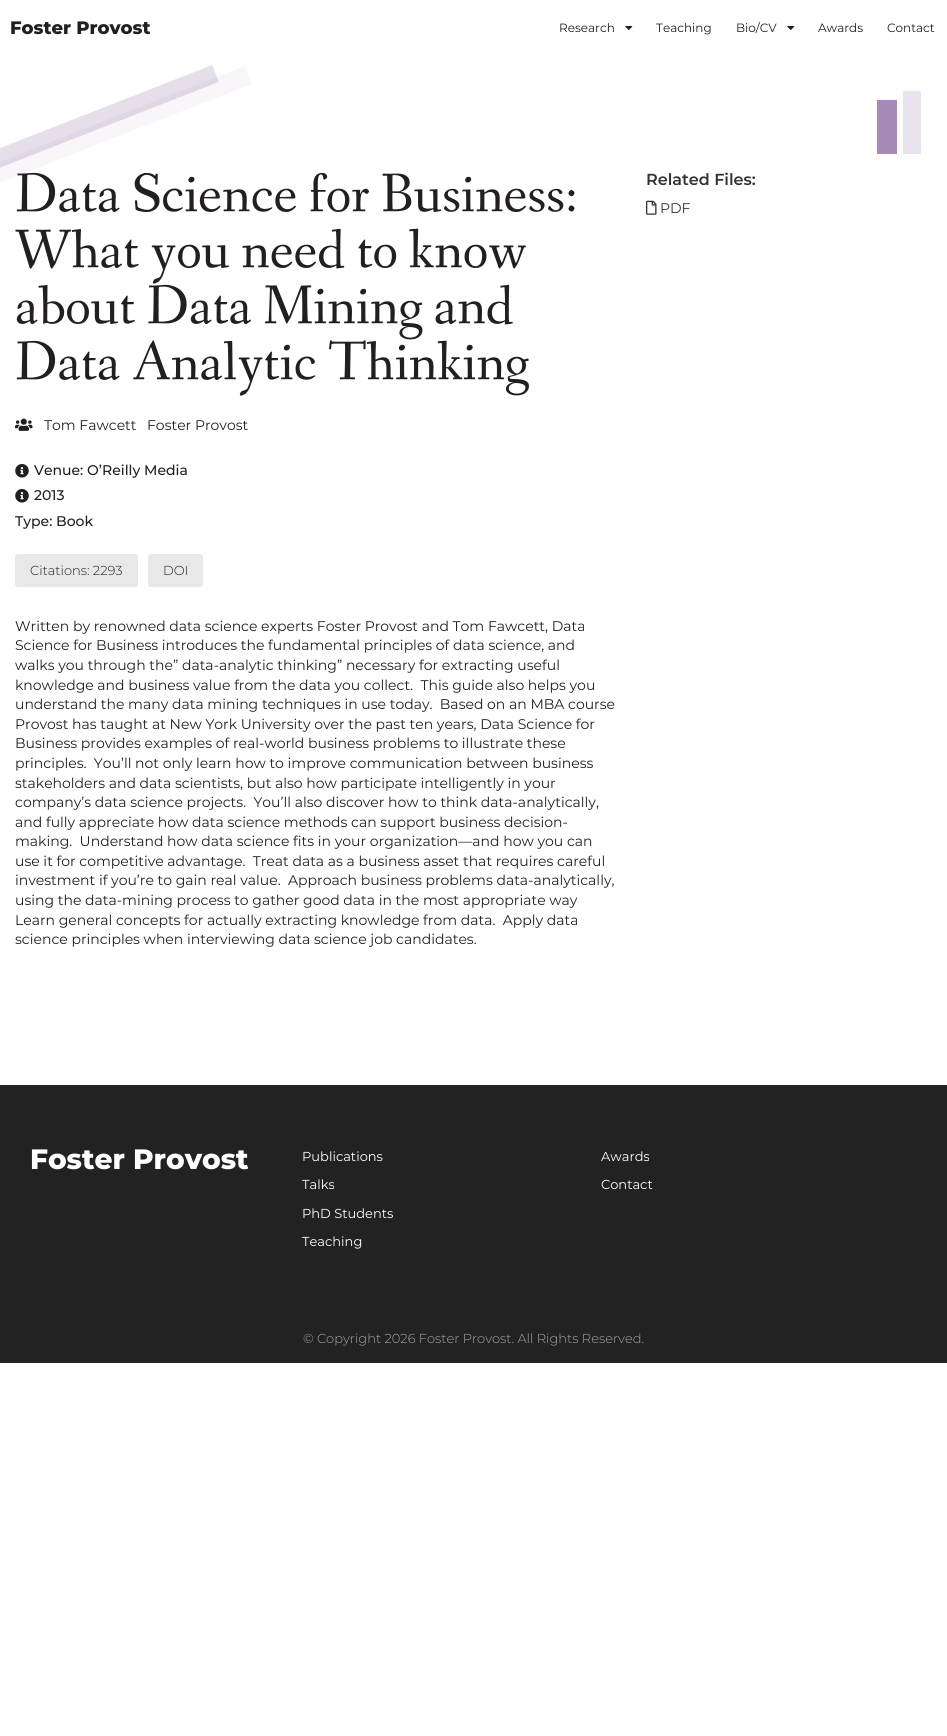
#include <cairo.h>
#include <math.h>
#include <stddef.h>


static void set_color(cairo_t *cr, unsigned color) {
    cairo_set_source_rgb(cr, (color >> 16) / 255.0, (color >> 8 & 255) / 255.0, (color & 255) / 255.0);
}

static void draw_text(cairo_t *cr, double x, double y, const char *s, const char *family, double size, int italic, int bold, unsigned color) {
    cairo_select_font_face(cr, family, italic ? CAIRO_FONT_SLANT_ITALIC : CAIRO_FONT_SLANT_NORMAL,
        bold ? CAIRO_FONT_WEIGHT_BOLD : CAIRO_FONT_WEIGHT_NORMAL);
    cairo_set_font_size(cr, size);
    set_color(cr, color);
    cairo_move_to(cr, x, y);
    cairo_show_text(cr, s);
}

static void fill_rect(cairo_t *cr, double x, double y, double w, double h, unsigned color) {
    set_color(cr, color);
    cairo_rectangle(cr, x, y, w, h);
    cairo_fill(cr);
}

static void rounded_rect(cairo_t *cr, double x, double y, double w, double h, double r) {
    cairo_new_sub_path(cr);
    cairo_arc(cr, x + w - r, y + h - r, r, 0, M_PI / 2);
    cairo_arc(cr, x + r, y + h - r, r, M_PI / 2, M_PI);
    cairo_arc(cr, x + r, y + r, r, M_PI, 1.5 * M_PI);
    cairo_arc(cr, x + w - r, y + r, r, 1.5 * M_PI, 2 * M_PI);
    cairo_close_path(cr);
}

static void draw_image(cairo_t *cr, const char *path, double x, double y, double w, double h) {
    cairo_surface_t *image = cairo_image_surface_create_from_png(path);
    cairo_save(cr);
    cairo_set_source_surface(cr, image, x, y);
    cairo_rectangle(cr, x, y, w, h);
    cairo_fill(cr);
    cairo_restore(cr);
    cairo_surface_destroy(image);
}

int main(void) {
    cairo_surface_t *surface = cairo_image_surface_create(CAIRO_FORMAT_RGB24, 947, 1736);
    cairo_t *cr = cairo_create(surface);
    cairo_font_options_t *options = cairo_font_options_create();
    cairo_font_options_set_hint_metrics(options, CAIRO_HINT_METRICS_OFF);
    cairo_font_options_set_hint_style(options, CAIRO_HINT_STYLE_NONE);
    cairo_set_font_options(cr, options);
    cairo_set_miter_limit(cr, 4);
    set_color(cr, 0xFFFFFF);
    cairo_paint(cr);
    draw_text(cr, 10, 34, "Foster Provost", "Montserrat ExtraBold", 18, 0, 0, 0x231F20);
    draw_text(cr, 559, 32, "Research", "Montserrat", 12, 0, 0, 0x231F20);
    draw_image(cr, "assets/img1.png", 625, 26, 8, 4);
    draw_text(cr, 656, 32, "Teaching", "Montserrat", 12, 0, 0, 0x231F20);
    draw_text(cr, 736, 32, "Bio/CV", "Montserrat", 12, 0, 0, 0x231F20);
    draw_image(cr, "assets/img1.png", 787, 26, 8, 4);
    draw_text(cr, 818, 32, "Awards", "Montserrat", 12, 0, 0, 0x231F20);
    draw_text(cr, 887, 32, "Contact", "Montserrat", 12, 0, 0, 0x231F20);
    draw_image(cr, "assets/img2.png", 0, 65, 219, 103);
    draw_text(cr, 15, 211, "Data Science for Business:", "Fanwood Text", 56, 0, 0, 0x231F20);
    draw_image(cr, "assets/img3.png", 0, 66, 252, 116);
    fill_rect(cr, 877, 100, 20, 54, 0xA68AB8);
    fill_rect(cr, 903, 91, 18, 63, 0xE9E3ED);
    draw_text(cr, 15, 267, "What you need to know", "Fanwood Text", 56, 0, 0, 0x231F20);
    draw_text(cr, 15, 323, "about Data Mining and", "Fanwood Text", 56, 0, 0, 0x231F20);
    draw_text(cr, 15, 379, "Data Analytic Thinking", "Fanwood Text", 56, 0, 0, 0x231F20);
    draw_image(cr, "assets/img4.png", 15, 418, 18, 13);
    draw_text(cr, 44, 430, "Tom Fawcett", "Montserrat", 14, 0, 0, 0x231F20);
    draw_text(cr, 147, 430, "Foster Provost", "Montserrat", 14, 0, 0, 0x231F20);
    draw_image(cr, "assets/img5.png", 15, 464, 14, 14);
    draw_text(cr, 34, 475, "Venue: O’Reilly Media", "Montserrat Medium", 14, 0, 0, 0x231F20);
    draw_image(cr, "assets/img5.png", 15, 489, 14, 14);
    draw_text(cr, 34, 500, "2013", "Montserrat Medium", 14, 0, 0, 0x231F20);
    draw_text(cr, 15, 526, "Type: Book", "Montserrat Medium", 14, 0, 0, 0x231F20);
    set_color(cr, 0xE8E8E8);
    rounded_rect(cr, 15, 554, 123, 33, 3);
    cairo_fill(cr);
    draw_text(cr, 30, 575, "Citations: 2293", "Montserrat Light", 13, 0, 0, 0x231F20);
    set_color(cr, 0xE8E8E8);
    rounded_rect(cr, 148, 554, 55, 33, 3);
    cairo_fill(cr);
    draw_text(cr, 163, 575, "DOI", "Montserrat Light", 13, 0, 0, 0x231F20);
    draw_text(cr, 15, 631, "Written by renowned data science experts Foster Provost and Tom Fawcett, Data", "Montserrat", 14, 0, 0, 0x231F20);
    draw_text(cr, 15, 650, "Science for Business introduces the fundamental principles of data science, and", "Montserrat", 14, 0, 0, 0x231F20);
    draw_text(cr, 15, 670, "walks you through the” data-analytic thinking” necessary for extracting useful", "Montserrat", 14, 0, 0, 0x231F20);
    draw_text(cr, 15, 690, "knowledge and business value from the data you collect.  This guide also helps you", "Montserrat", 14, 0, 0, 0x231F20);
    draw_text(cr, 15, 709, "understand the many data mining techniques in use today.  Based on an MBA course", "Montserrat", 14, 0, 0, 0x231F20);
    draw_text(cr, 15, 729, "Provost has taught at New York University over the past ten years, Data Science for", "Montserrat", 14, 0, 0, 0x231F20);
    draw_text(cr, 15, 748, "Business provides examples of real-world business problems to illustrate these", "Montserrat", 14, 0, 0, 0x231F20);
    draw_text(cr, 15, 768, "principles.  You’ll not only learn how to improve communication between business", "Montserrat", 14, 0, 0, 0x231F20);
    draw_text(cr, 15, 788, "stakeholders and data scientists, but also how participate intelligently in your", "Montserrat", 14, 0, 0, 0x231F20);
    draw_text(cr, 15, 807, "company’s data science projects.  You’ll also discover how to think data-analytically,", "Montserrat", 14, 0, 0, 0x231F20);
    draw_text(cr, 15, 827, "and fully appreciate how data science methods can support business decision-", "Montserrat", 14, 0, 0, 0x231F20);
    draw_text(cr, 15, 846, "making.  Understand how data science fits in your organization—and how you can", "Montserrat", 14, 0, 0, 0x231F20);
    draw_text(cr, 15, 866, "use it for competitive advantage.  Treat data as a business asset that requires careful", "Montserrat", 14, 0, 0, 0x231F20);
    draw_text(cr, 15, 885, "investment if you’re to gain real value.  Approach business problems data-analytically,", "Montserrat", 14, 0, 0, 0x231F20);
    draw_text(cr, 15, 905, "using the data-mining process to gather good data in the most appropriate way", "Montserrat", 14, 0, 0, 0x231F20);
    draw_text(cr, 15, 925, "Learn general concepts for actually extracting knowledge from data.  Apply data", "Montserrat", 14, 0, 0, 0x231F20);
    draw_text(cr, 15, 944, "science principles when interviewing data science job candidates.", "Montserrat", 14, 0, 0, 0x231F20);
    draw_text(cr, 646, 185, "Related Files:", "Montserrat SemiBold", 16, 0, 0, 0x333333);
    draw_image(cr, "assets/img6.png", 646, 200, 11, 15);
    draw_text(cr, 660, 213, "PDF", "Montserrat", 14, 0, 0, 0x333333);
    fill_rect(cr, 0, 1085, 947, 278, 0x222222);
    draw_text(cr, 30, 1169, "Foster Provost", "Montserrat ExtraBold", 28, 0, 0, 0xFFFFFF);
    draw_text(cr, 302, 1161, "Publications", "Montserrat", 13, 0, 0, 0xFFFFFF);
    draw_text(cr, 302, 1189, "Talks", "Montserrat", 13, 0, 0, 0xFFFFFF);
    draw_text(cr, 302, 1218, "PhD Students", "Montserrat", 13, 0, 0, 0xFFFFFF);
    draw_text(cr, 302, 1246, "Teaching", "Montserrat", 13, 0, 0, 0xFFFFFF);
    draw_text(cr, 601, 1161, "Awards", "Montserrat", 13, 0, 0, 0xFFFFFF);
    draw_text(cr, 601, 1189, "Contact", "Montserrat", 13, 0, 0, 0xFFFFFF);
    draw_text(cr, 303, 1343, "© Copyright 2026 Foster Provost. All Rights Reserved.", "Montserrat Light", 13, 0, 0, 0xA7A7A7);
    cairo_surface_write_to_png(surface, "output.png");
    cairo_font_options_destroy(options);
    cairo_destroy(cr);
    cairo_surface_destroy(surface);
    return 0;
}
